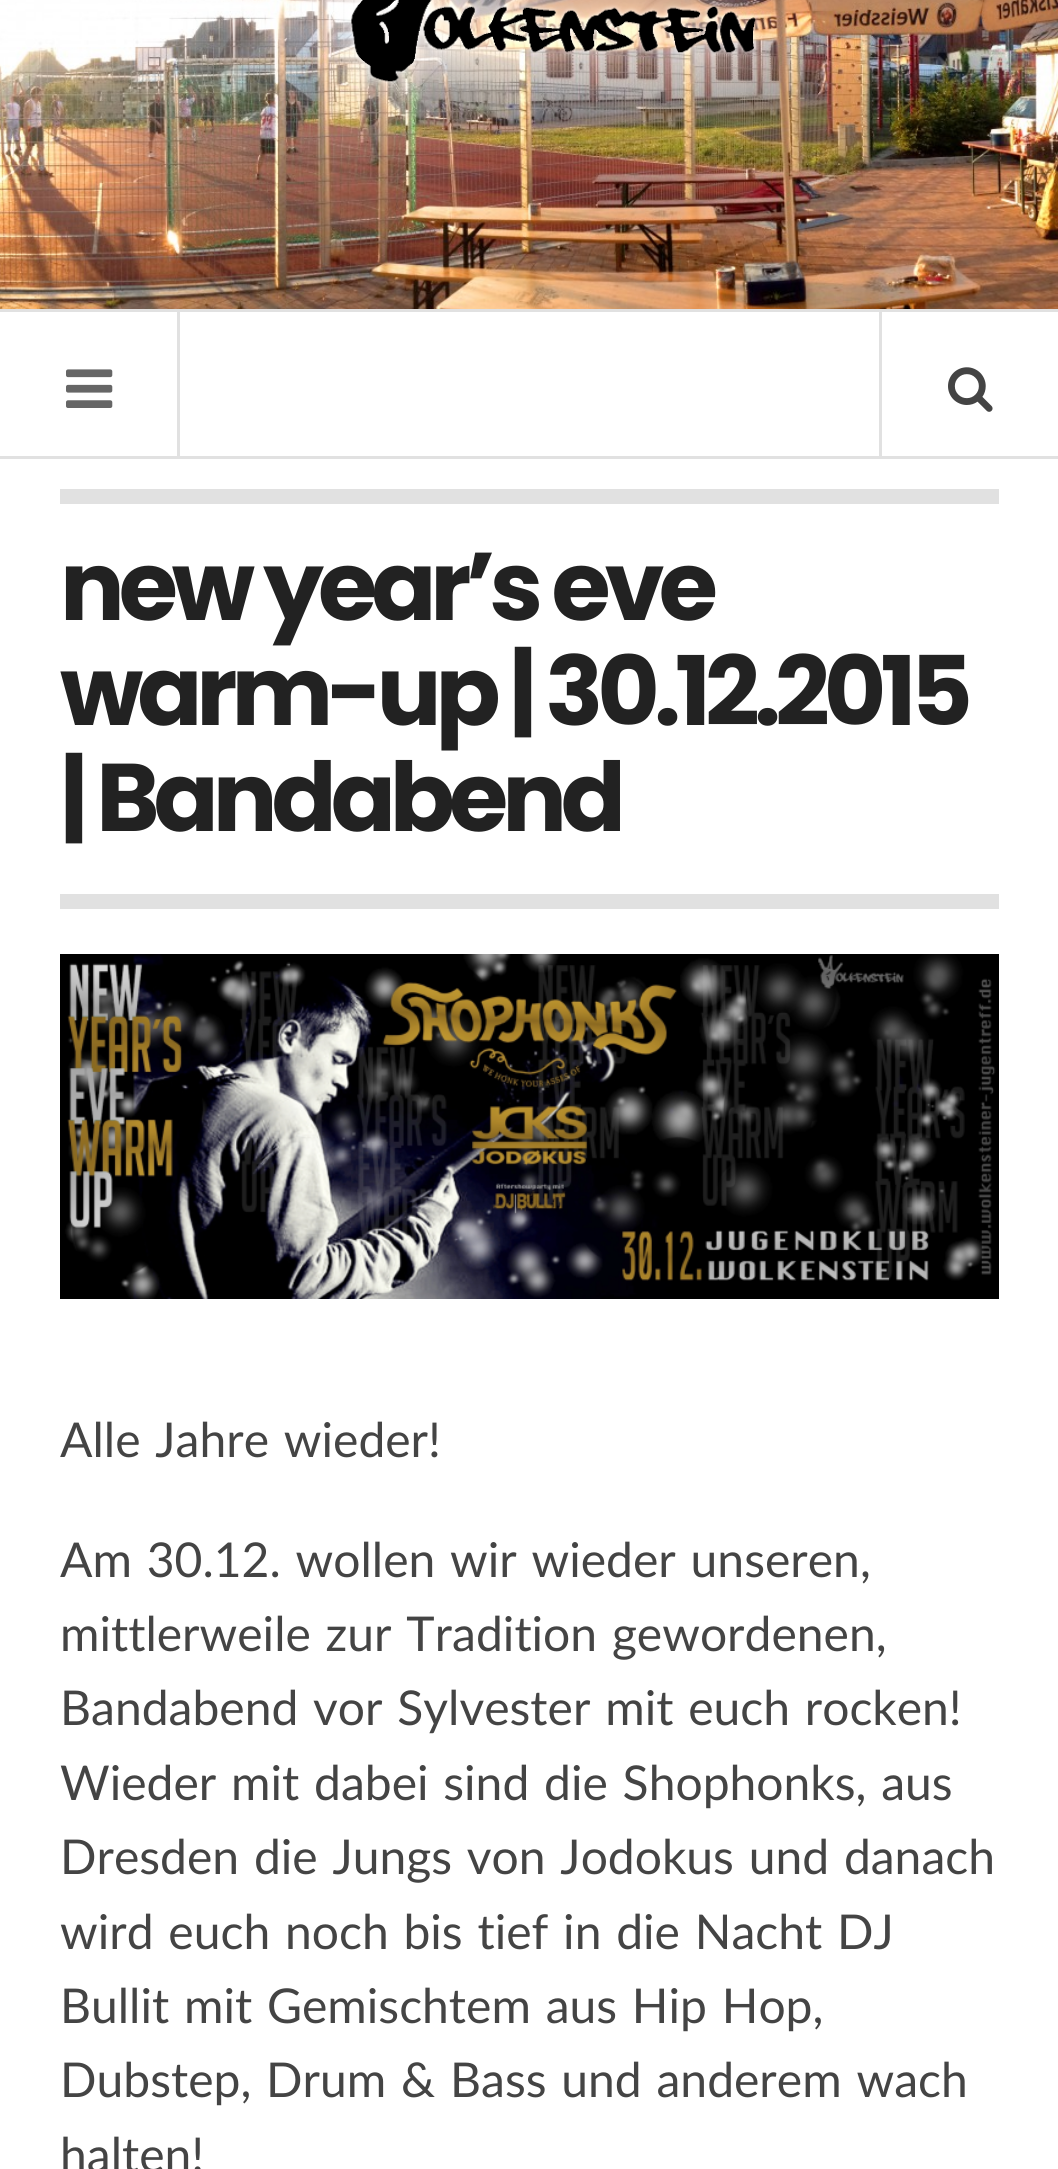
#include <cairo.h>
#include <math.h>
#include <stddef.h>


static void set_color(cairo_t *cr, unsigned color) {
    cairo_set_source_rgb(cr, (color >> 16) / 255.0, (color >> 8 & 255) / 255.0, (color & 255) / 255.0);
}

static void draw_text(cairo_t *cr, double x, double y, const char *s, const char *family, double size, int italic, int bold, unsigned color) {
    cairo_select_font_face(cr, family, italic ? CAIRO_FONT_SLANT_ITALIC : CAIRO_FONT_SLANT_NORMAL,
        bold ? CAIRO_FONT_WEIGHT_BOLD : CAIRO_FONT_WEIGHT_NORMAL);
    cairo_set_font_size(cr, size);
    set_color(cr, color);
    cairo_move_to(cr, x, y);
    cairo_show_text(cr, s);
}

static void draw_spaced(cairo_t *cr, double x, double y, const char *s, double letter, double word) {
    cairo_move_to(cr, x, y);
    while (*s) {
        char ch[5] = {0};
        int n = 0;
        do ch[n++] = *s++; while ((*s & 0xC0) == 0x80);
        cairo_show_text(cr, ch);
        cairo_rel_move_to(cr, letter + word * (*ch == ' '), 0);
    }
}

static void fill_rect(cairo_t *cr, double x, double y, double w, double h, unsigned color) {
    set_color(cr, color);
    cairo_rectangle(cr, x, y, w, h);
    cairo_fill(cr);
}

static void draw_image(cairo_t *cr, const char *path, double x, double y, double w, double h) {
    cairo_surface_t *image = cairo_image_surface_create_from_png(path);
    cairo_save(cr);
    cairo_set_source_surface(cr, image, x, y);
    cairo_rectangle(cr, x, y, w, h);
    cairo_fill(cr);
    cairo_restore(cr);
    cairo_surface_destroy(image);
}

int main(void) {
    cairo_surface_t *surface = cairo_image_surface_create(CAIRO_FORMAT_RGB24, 1058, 2169);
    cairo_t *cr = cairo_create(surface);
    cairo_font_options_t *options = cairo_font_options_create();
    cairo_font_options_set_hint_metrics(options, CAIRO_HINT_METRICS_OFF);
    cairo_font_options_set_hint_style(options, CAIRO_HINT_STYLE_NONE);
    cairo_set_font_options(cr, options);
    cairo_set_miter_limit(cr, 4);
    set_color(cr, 0xFFFFFF);
    cairo_paint(cr);
    draw_image(cr, "assets/img1.png", 0, 0, 1058, 309);
    draw_image(cr, "assets/img2.png", 266, 0, 551, 150);
    fill_rect(cr, 0, 309, 1058, 3, 0xE1E1E1);
    fill_rect(cr, 0, 456, 1058, 3, 0xE1E1E1);
    fill_rect(cr, 177, 312, 3, 144, 0xE1E1E1);
    draw_image(cr, "assets/img3.png", 66, 369, 47, 39);
    fill_rect(cr, 879, 312, 3, 144, 0xE1E1E1);
    draw_image(cr, "assets/img4.png", 948, 367, 45, 45);
    fill_rect(cr, 60, 489, 939, 15, 0xE1E1E1);
    cairo_select_font_face(cr, "Poppins", CAIRO_FONT_SLANT_NORMAL, CAIRO_FONT_WEIGHT_BOLD);
    cairo_set_font_size(cr, 96);
    set_color(cr, 0x222222);
    draw_spaced(cr, 60, 620, "new year’s eve", -6, 0);
    draw_spaced(cr, 60, 725, "warm-up | 30.12.2015", -6, 0);
    draw_spaced(cr, 60, 831, "| Bandabend", -6, 0);
    fill_rect(cr, 60, 894, 939, 15, 0xE1E1E1);
    draw_image(cr, "assets/img5.png", 60, 954, 939, 345);
    cairo_select_font_face(cr, "Lato", CAIRO_FONT_SLANT_NORMAL, CAIRO_FONT_WEIGHT_NORMAL);
    cairo_set_font_size(cr, 48);
    set_color(cr, 0x444444);
    draw_spaced(cr, 60, 1457, "Alle Jahre wieder!", 0, 2.5);
    draw_spaced(cr, 60, 1577, "Am 30.12. wollen wir wieder unseren,", 0, 2.5);
    draw_spaced(cr, 60, 1651, "mittlerweile zur Tradition gewordenen,", 0, 2.5);
    draw_spaced(cr, 60, 1725, "Bandabend vor Sylvester mit euch rocken!", 0, 2.5);
    draw_spaced(cr, 60, 1800, "Wieder mit dabei sind die Shophonks, aus", 0, 2.5);
    draw_spaced(cr, 60, 1874, "Dresden die Jungs von Jodokus und danach", 0, 2.5);
    draw_spaced(cr, 60, 1949, "wird euch noch bis tief in die Nacht DJ", 0, 2.5);
    draw_spaced(cr, 60, 2023, "Bullit mit Gemischtem aus Hip Hop,", 0, 2.5);
    draw_spaced(cr, 60, 2097, "Dubstep, Drum & Bass und anderem wach", 0, 2.5);
    draw_text(cr, 60, 2172, "halten!", "Lato", 48, 0, 0, 0x444444);
    cairo_surface_write_to_png(surface, "output.png");
    cairo_font_options_destroy(options);
    cairo_destroy(cr);
    cairo_surface_destroy(surface);
    return 0;
}
